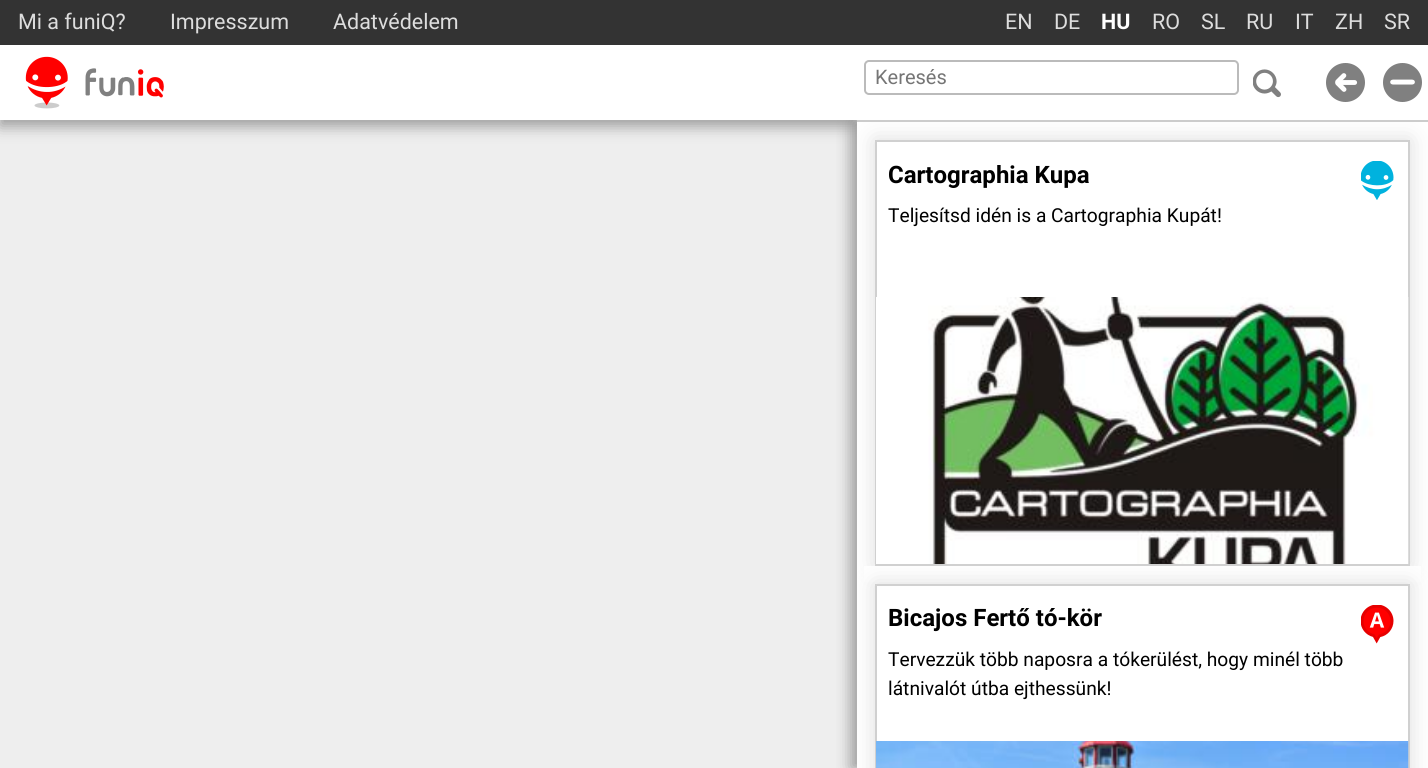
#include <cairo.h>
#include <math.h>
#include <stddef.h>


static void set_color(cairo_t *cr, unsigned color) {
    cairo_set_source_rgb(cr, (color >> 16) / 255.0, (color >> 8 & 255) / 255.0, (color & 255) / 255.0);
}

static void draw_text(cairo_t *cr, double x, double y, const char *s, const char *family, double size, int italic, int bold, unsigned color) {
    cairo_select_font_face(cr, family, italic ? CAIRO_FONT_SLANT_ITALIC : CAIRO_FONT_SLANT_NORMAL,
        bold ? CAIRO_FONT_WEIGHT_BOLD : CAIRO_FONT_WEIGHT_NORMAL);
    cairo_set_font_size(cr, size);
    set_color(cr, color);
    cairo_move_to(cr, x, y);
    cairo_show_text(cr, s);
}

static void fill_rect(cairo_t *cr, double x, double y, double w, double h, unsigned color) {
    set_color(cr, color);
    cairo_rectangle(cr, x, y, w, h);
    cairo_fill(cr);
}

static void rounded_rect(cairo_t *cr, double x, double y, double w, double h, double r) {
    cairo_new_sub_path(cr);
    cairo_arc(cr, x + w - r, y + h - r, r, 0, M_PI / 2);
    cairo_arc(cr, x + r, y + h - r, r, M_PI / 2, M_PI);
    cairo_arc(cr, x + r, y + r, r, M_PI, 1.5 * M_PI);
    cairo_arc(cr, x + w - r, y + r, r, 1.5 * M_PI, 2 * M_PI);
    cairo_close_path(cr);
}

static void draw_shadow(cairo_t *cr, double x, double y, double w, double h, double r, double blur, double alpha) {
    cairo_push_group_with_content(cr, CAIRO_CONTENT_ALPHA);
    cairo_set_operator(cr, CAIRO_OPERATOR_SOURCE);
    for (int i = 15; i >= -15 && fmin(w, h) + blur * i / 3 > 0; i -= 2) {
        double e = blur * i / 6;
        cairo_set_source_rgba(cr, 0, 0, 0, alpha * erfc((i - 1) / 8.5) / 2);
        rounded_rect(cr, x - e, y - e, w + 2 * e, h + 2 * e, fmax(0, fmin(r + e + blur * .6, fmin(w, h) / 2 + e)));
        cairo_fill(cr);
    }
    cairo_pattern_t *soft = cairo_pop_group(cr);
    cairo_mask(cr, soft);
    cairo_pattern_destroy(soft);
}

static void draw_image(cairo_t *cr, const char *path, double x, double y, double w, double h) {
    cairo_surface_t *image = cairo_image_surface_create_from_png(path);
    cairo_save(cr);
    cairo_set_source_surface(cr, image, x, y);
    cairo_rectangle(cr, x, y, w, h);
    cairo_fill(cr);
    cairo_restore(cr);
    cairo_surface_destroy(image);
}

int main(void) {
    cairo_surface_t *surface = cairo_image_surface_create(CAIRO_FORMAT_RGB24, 1428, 768);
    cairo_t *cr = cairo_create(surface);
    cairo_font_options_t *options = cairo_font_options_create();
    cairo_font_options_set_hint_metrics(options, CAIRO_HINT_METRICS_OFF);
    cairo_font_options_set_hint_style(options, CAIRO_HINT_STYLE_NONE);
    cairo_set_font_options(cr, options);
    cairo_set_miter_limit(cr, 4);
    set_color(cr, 0xFFFFFF);
    cairo_paint(cr);
    fill_rect(cr, 0, 120, 857, 648, 0xEEEEEE);
    cairo_save(cr);
    cairo_rectangle(cr, 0, 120, 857, 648);
    cairo_clip(cr);
    set_color(cr, 0x999999);
    draw_shadow(cr, 0, 111, 857, 15, 0, 7.5, 1);
    cairo_restore(cr);
    cairo_save(cr);
    cairo_rectangle(cr, 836, 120, 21, 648);
    cairo_clip(cr);
    set_color(cr, 0x999999);
    draw_shadow(cr, 851, 120, 571, 648, 0, 7.5, 1);
    cairo_restore(cr);
    fill_rect(cr, 857, 120, 571, 2, 0xCCCCCC);
    cairo_save(cr);
    cairo_rectangle(cr, 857, 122, 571, 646);
    cairo_clip(cr);
    cairo_set_fill_rule(cr, CAIRO_FILL_RULE_EVEN_ODD);
    cairo_new_path(cr);
    cairo_move_to(cr, 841, 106);
    cairo_line_to(cr, 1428, 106);
    cairo_line_to(cr, 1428, 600);
    cairo_line_to(cr, 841, 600);
    cairo_close_path(cr);
    cairo_move_to(cr, 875, 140);
    cairo_line_to(cr, 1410, 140);
    cairo_line_to(cr, 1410, 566);
    cairo_line_to(cr, 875, 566);
    cairo_close_path(cr);
    cairo_clip(cr);
    set_color(cr, 0xDDDDDD);
    draw_shadow(cr, 875, 140, 535, 426, 0, 11, 1);
    cairo_restore(cr);
    fill_rect(cr, 839, 105, 589, 15, 0xFFFFFF);
    fill_rect(cr, 0, 0, 1428, 45, 0x333333);
    draw_text(cr, 18, 29, "Mi a funiQ?", "Roboto", 21.5, 0, 0, 0xDDDDDD);
    draw_text(cr, 170, 29, "Impresszum", "Roboto", 21.5, 0, 0, 0xDDDDDD);
    draw_text(cr, 333, 29, "Adatvédelem", "Roboto", 21.5, 0, 0, 0xDDDDDD);
    draw_text(cr, 1005, 29, "EN", "Roboto", 21.5, 0, 0, 0xDDDDDD);
    draw_text(cr, 1054, 29, "DE", "Roboto", 21.5, 0, 0, 0xDDDDDD);
    draw_text(cr, 1101, 29, "HU", "Roboto", 21.5, 0, 1, 0xFFFFFF);
    draw_text(cr, 1152, 29, "RO", "Roboto", 21.5, 0, 0, 0xDDDDDD);
    draw_text(cr, 1201, 29, "SL", "Roboto", 21.5, 0, 0, 0xDDDDDD);
    draw_text(cr, 1246, 29, "RU", "Roboto", 21.5, 0, 0, 0xDDDDDD);
    draw_text(cr, 1295, 29, "IT", "Roboto", 21.5, 0, 0, 0xDDDDDD);
    draw_text(cr, 1335, 29, "ZH", "Roboto", 21.5, 0, 0, 0xDDDDDD);
    draw_text(cr, 1384, 29, "SR", "Roboto", 21.5, 0, 0, 0xDDDDDD);
    draw_image(cr, "assets/img1.png", 25, 56, 139, 53);
    draw_image(cr, "assets/img2.png", 1253, 69, 28, 29);
    rounded_rect(cr, 865, 61, 373, 33, 4);
    set_color(cr, 0xBBBBBB);
    cairo_stroke(cr);
    draw_text(cr, 875, 84, "Keresés", "Roboto", 20, 0, 0, 0x757575);
    draw_image(cr, "assets/img3.png", 1326, 63, 39, 39);
    draw_image(cr, "assets/img4.png", 1383, 63, 39, 39);
    cairo_rectangle(cr, 876, 141, 533, 424);
    set_color(cr, 0xD0D0D0);
    cairo_stroke(cr);
    draw_text(cr, 888, 183, "Cartographia Kupa", "Roboto", 24, 0, 1, 0x000000);
    draw_image(cr, "assets/img5.png", 1361, 161, 33, 39);
    draw_text(cr, 888, 222, "Teljesítsd idén is a Cartographia Kupát!", "Roboto", 19.2, 0, 0, 0x000000);
    fill_rect(cr, 864, 566, 557, 16, 0xFFFFFF);
    cairo_save(cr);
    cairo_rectangle(cr, 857, 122, 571, 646);
    cairo_clip(cr);
    cairo_set_fill_rule(cr, CAIRO_FILL_RULE_EVEN_ODD);
    cairo_new_path(cr);
    cairo_move_to(cr, 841, 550);
    cairo_line_to(cr, 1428, 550);
    cairo_line_to(cr, 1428, 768);
    cairo_line_to(cr, 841, 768);
    cairo_close_path(cr);
    cairo_move_to(cr, 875, 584);
    cairo_line_to(cr, 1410, 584);
    cairo_line_to(cr, 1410, 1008);
    cairo_line_to(cr, 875, 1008);
    cairo_close_path(cr);
    cairo_clip(cr);
    set_color(cr, 0xDDDDDD);
    draw_shadow(cr, 875, 584, 535, 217, 0, 11, 1);
    cairo_restore(cr);
    draw_image(cr, "assets/img6.png", 876, 297, 533, 267);
    cairo_rectangle(cr, 876, 585, 533, 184);
    set_color(cr, 0xD0D0D0);
    cairo_stroke(cr);
    draw_text(cr, 888, 626, "Bicajos Fertő tó-kör", "Roboto", 24, 0, 1, 0x000000);
    draw_image(cr, "assets/img7.png", 1361, 605, 33, 39);
    draw_text(cr, 888, 666, "Tervezzük több naposra a tókerülést, hogy minél több", "Roboto", 19.2, 0, 0, 0x000000);
    draw_text(cr, 888, 695, "látnivalót útba ejthessünk!", "Roboto", 19.2, 0, 0, 0x000000);
    draw_image(cr, "assets/img8.png", 876, 741, 533, 27);
    cairo_surface_write_to_png(surface, "output.png");
    cairo_font_options_destroy(options);
    cairo_destroy(cr);
    cairo_surface_destroy(surface);
    return 0;
}
